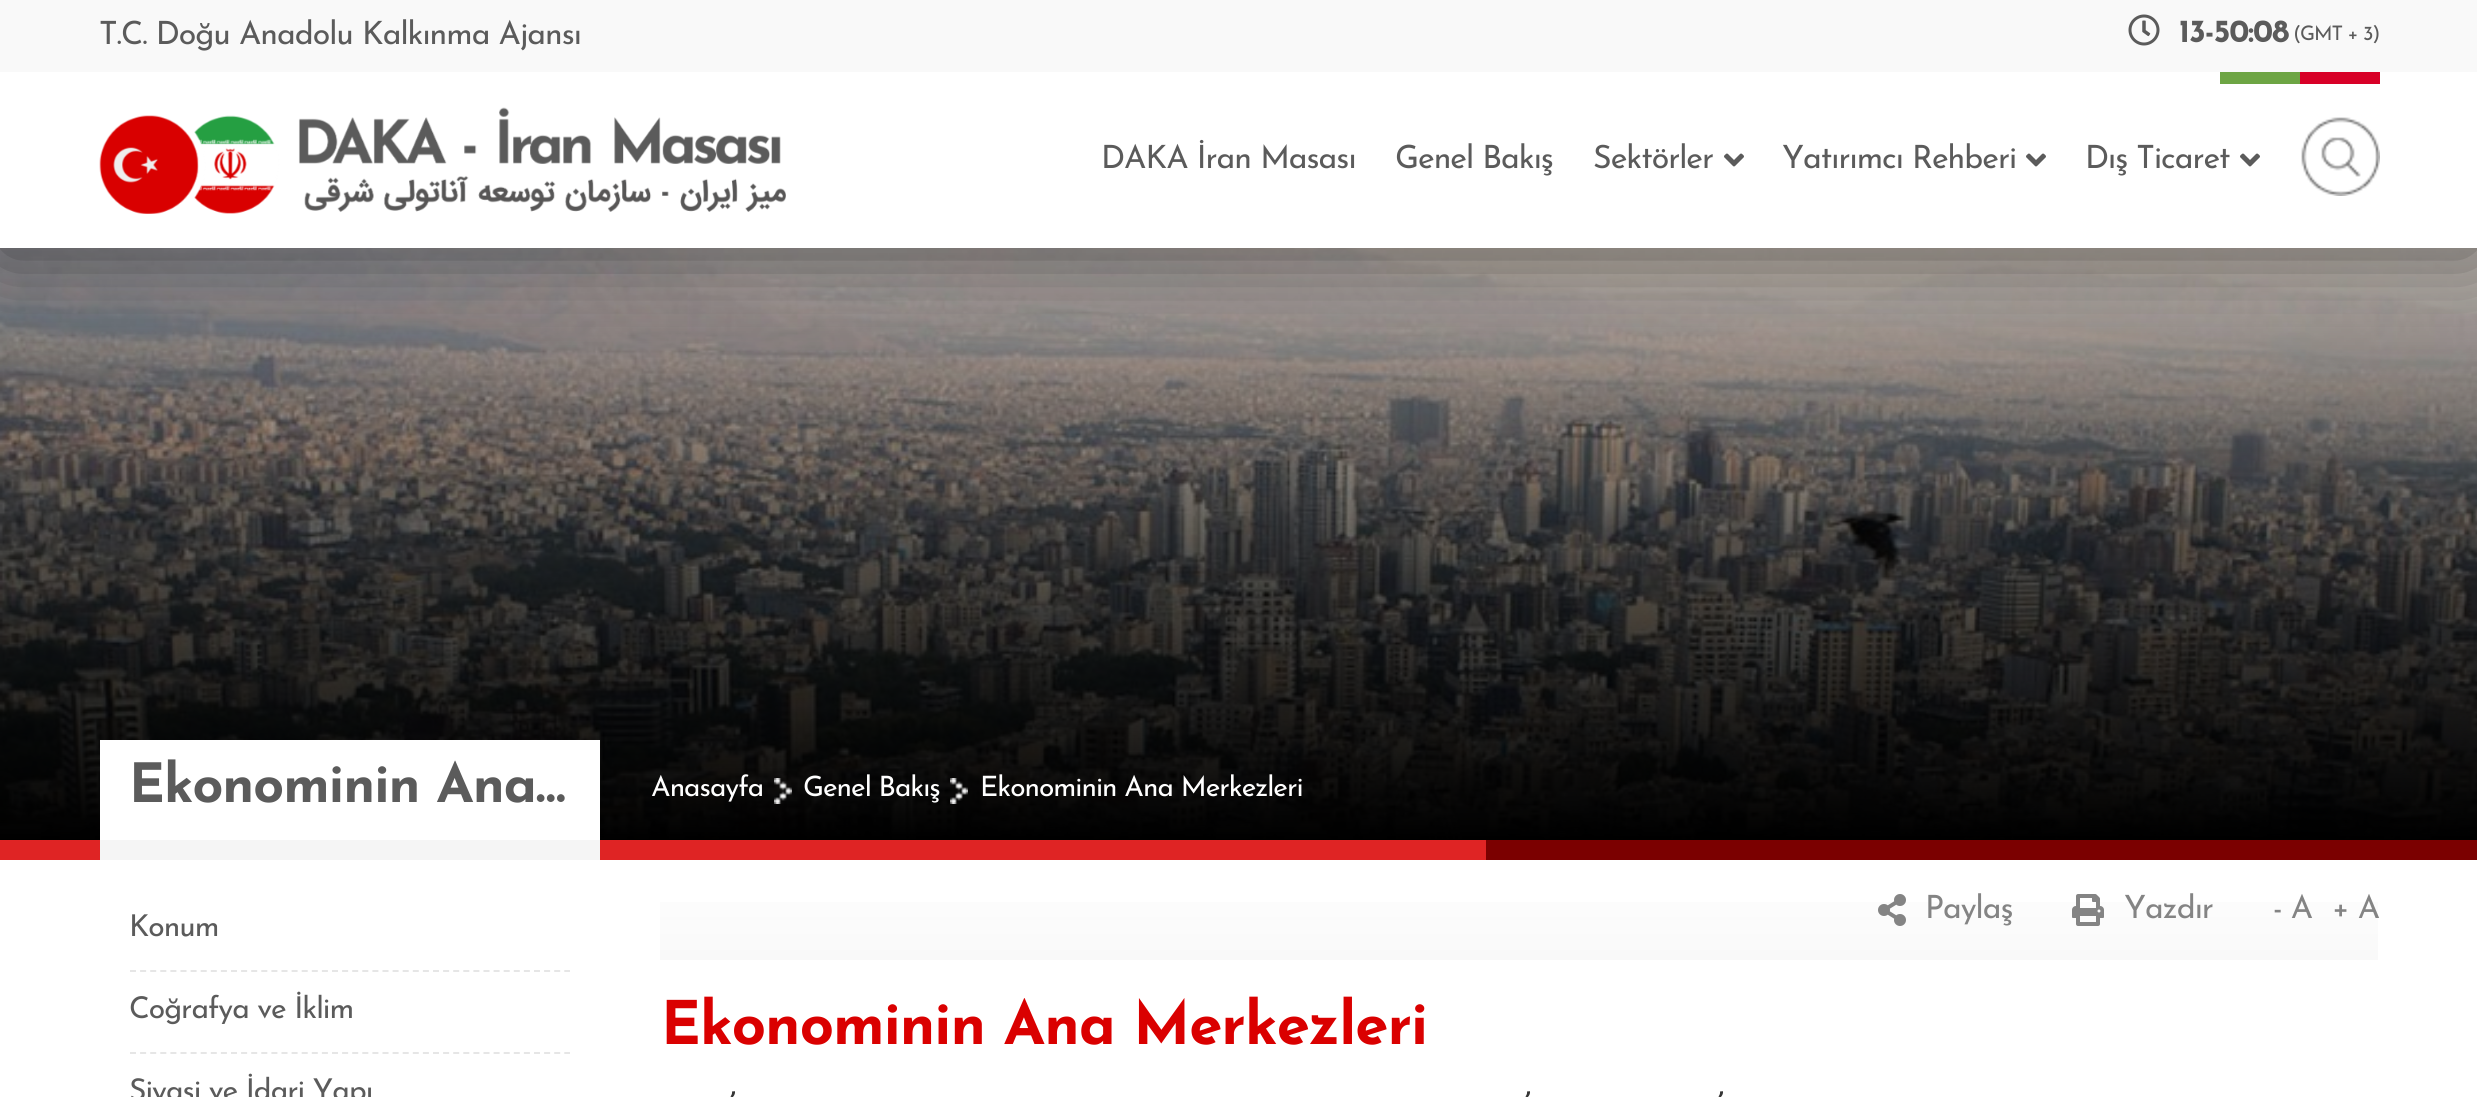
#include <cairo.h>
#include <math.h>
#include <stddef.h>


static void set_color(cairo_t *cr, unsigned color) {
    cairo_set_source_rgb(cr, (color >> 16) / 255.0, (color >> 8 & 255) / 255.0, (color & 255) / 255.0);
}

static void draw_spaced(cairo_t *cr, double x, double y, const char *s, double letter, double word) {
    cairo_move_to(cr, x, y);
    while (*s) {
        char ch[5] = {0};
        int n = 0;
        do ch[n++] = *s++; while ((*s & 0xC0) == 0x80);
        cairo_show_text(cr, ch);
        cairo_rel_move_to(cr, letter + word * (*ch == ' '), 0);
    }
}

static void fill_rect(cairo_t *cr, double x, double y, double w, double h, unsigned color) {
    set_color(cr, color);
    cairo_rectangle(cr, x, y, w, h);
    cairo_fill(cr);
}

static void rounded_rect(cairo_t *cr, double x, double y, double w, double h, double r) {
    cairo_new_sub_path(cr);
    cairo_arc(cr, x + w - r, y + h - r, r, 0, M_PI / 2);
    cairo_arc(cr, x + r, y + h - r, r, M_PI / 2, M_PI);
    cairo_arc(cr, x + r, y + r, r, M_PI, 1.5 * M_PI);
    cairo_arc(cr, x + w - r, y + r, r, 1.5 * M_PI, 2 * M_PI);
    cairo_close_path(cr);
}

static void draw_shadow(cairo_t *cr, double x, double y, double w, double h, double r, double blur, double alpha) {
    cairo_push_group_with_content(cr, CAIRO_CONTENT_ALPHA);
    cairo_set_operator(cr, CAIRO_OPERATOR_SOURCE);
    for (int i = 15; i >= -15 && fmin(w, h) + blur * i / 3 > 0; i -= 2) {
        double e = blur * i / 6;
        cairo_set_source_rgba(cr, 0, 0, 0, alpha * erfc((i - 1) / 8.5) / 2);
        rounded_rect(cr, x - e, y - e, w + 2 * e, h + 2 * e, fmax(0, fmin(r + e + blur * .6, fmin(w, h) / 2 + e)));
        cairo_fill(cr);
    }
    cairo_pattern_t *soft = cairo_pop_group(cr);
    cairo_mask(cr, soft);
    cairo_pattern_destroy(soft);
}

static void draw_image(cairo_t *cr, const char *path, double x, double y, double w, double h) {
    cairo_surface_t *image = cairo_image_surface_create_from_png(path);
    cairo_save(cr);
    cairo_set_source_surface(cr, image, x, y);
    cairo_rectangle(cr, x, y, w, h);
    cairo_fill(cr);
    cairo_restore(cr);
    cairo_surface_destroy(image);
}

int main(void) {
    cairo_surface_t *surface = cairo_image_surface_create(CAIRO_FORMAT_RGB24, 2477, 1097);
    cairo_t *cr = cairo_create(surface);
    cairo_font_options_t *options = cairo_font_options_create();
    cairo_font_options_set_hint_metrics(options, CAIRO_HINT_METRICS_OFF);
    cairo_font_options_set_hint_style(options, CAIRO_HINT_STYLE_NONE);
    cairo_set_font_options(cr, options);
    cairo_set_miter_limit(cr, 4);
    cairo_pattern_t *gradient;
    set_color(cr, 0xFFFFFF);
    cairo_paint(cr);
    draw_image(cr, "assets/img5.png", 0, 248, 2477, 592);
    set_color(cr, 0x000000);
    draw_shadow(cr, 0, 6, 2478, 248, 0, 40, 0.57);
    fill_rect(cr, 0, 72, 2477, 176, 0xFFFFFF);
    fill_rect(cr, 0, 0, 2477, 72, 0xF9F9F9);
    cairo_select_font_face(cr, "Josefin Sans", CAIRO_FONT_SLANT_NORMAL, CAIRO_FONT_WEIGHT_NORMAL);
    cairo_set_font_size(cr, 32);
    set_color(cr, 0x5B5B5B);
    draw_spaced(cr, 99, 44, "T.C. Doğu Anadolu Kalkınma Ajansı", -1, 0);
    draw_image(cr, "assets/img1.png", 2128, 14, 32, 32);
    cairo_select_font_face(cr, "Josefin Sans", CAIRO_FONT_SLANT_NORMAL, CAIRO_FONT_WEIGHT_BOLD);
    draw_spaced(cr, 2179, 42, "13-50:08", -1, 0);
    cairo_select_font_face(cr, "Josefin Sans", CAIRO_FONT_SLANT_NORMAL, CAIRO_FONT_WEIGHT_NORMAL);
    cairo_set_font_size(cr, 20);
    draw_spaced(cr, 2293, 40, "(GMT + 3)", -1, 0);
    fill_rect(cr, 2220, 72, 80, 12, 0x6DA544);
    fill_rect(cr, 2300, 72, 80, 12, 0xD80027);
    draw_image(cr, "assets/img2.png", 99, 107, 687, 107);
    cairo_set_font_size(cr, 32);
    set_color(cr, 0x5B5B5B);
    draw_spaced(cr, 1101, 168, "DAKA İran Masası", -1, 0);
    draw_spaced(cr, 1395, 168, "Genel Bakış", -1, 0);
    draw_spaced(cr, 1593, 168, "Sektörler", -1, 0);
    draw_image(cr, "assets/img3.png", 1724, 153, 20, 14);
    draw_spaced(cr, 1782, 168, "Yatırımcı Rehberi", -1, 0);
    draw_image(cr, "assets/img3.png", 2026, 153, 20, 14);
    draw_spaced(cr, 2085, 168, "Dış Ticaret", -1, 0);
    draw_image(cr, "assets/img3.png", 2240, 153, 20, 14);
    draw_image(cr, "assets/img4.png", 2301, 117, 79, 79);
    fill_rect(cr, 0, 840, 1486, 20, 0xDF2424);
    fill_rect(cr, 100, 740, 500, 100, 0xFFFFFF);
    cairo_select_font_face(cr, "Josefin Sans", CAIRO_FONT_SLANT_NORMAL, CAIRO_FONT_WEIGHT_BOLD);
    cairo_set_font_size(cr, 54);
    set_color(cr, 0x5B5B5B);
    draw_spaced(cr, 129, 802, "Ekonominin Ana…", -1, 0);
    fill_rect(cr, 100, 840, 500, 20, 0xF5F5F5);
    cairo_select_font_face(cr, "Josefin Sans", CAIRO_FONT_SLANT_NORMAL, CAIRO_FONT_WEIGHT_NORMAL);
    cairo_set_font_size(cr, 28);
    set_color(cr, 0xFFFFFF);
    draw_spaced(cr, 651, 796, "Anasayfa", -1, 0);
    draw_image(cr, "assets/img6.png", 774, 778, 18, 26);
    draw_spaced(cr, 803, 796, "Genel Bakış", -1, 0);
    draw_image(cr, "assets/img7.png", 950, 778, 18, 26);
    draw_spaced(cr, 980, 796, "Ekonominin Ana Merkezleri", -1, 0);
    fill_rect(cr, 1486, 840, 991, 20, 0x7B0000);
    cairo_new_path(cr);
    cairo_move_to(cr, 130, 971);
    cairo_line_to(cr, 570, 971);
    set_color(cr, 0xE6E6E6);
    cairo_set_dash(cr, (double[]){6, 4.1}, 2, 0);
    cairo_stroke(cr);
    cairo_set_font_size(cr, 30);
    set_color(cr, 0x5B5B5B);
    draw_spaced(cr, 129, 936, "Konum", -1, 0);
    cairo_new_path(cr);
    cairo_move_to(cr, 130, 1053);
    cairo_line_to(cr, 570, 1053);
    set_color(cr, 0xE6E6E6);
    cairo_stroke(cr);
    set_color(cr, 0x5B5B5B);
    draw_spaced(cr, 129, 1018, "Coğrafya ve İklim", -1, 0);
    draw_spaced(cr, 129, 1100, "Siyasi ve İdari Yapı", -1, 0);
    gradient = cairo_pattern_create_linear(1519, 860, 1519, 960);
    cairo_pattern_add_color_stop_rgba(gradient, 0, 1, 1, 1, 1);
    cairo_pattern_add_color_stop_rgba(gradient, 1, 0.976, 0.976, 0.976, 1);
    cairo_set_source(cr, gradient);
    cairo_pattern_destroy(gradient);
    cairo_rectangle(cr, 660, 902, 1718, 58);
    cairo_fill(cr);
    draw_image(cr, "assets/img8.png", 1878, 894, 28, 32);
    cairo_set_font_size(cr, 32);
    set_color(cr, 0x848484);
    draw_spaced(cr, 1925, 918, "Paylaş", -1, 0);
    draw_image(cr, "assets/img9.png", 2072, 894, 32, 32);
    draw_spaced(cr, 2124, 918, "Yazdır", -1, 0);
    draw_spaced(cr, 2273, 918, "- A", -1, 0);
    draw_spaced(cr, 2332, 918, "+ A", -1, 0);
    cairo_select_font_face(cr, "Josefin Sans", CAIRO_FONT_SLANT_NORMAL, CAIRO_FONT_WEIGHT_BOLD);
    cairo_set_font_size(cr, 60);
    set_color(cr, 0xDA0000);
    draw_spaced(cr, 661, 1044, "Ekonominin Ana Merkezleri", -1, 0);
    cairo_select_font_face(cr, "Josefin Sans", CAIRO_FONT_SLANT_NORMAL, CAIRO_FONT_WEIGHT_NORMAL);
    cairo_set_font_size(cr, 40);
    set_color(cr, 0x353535);
    draw_spaced(cr, 729, 1120, "’", -1, 0);
    draw_spaced(cr, 1524, 1120, "’", -1, 0);
    draw_spaced(cr, 1717, 1120, "’", -1, 0);
    cairo_surface_write_to_png(surface, "output.png");
    cairo_font_options_destroy(options);
    cairo_destroy(cr);
    cairo_surface_destroy(surface);
    return 0;
}
